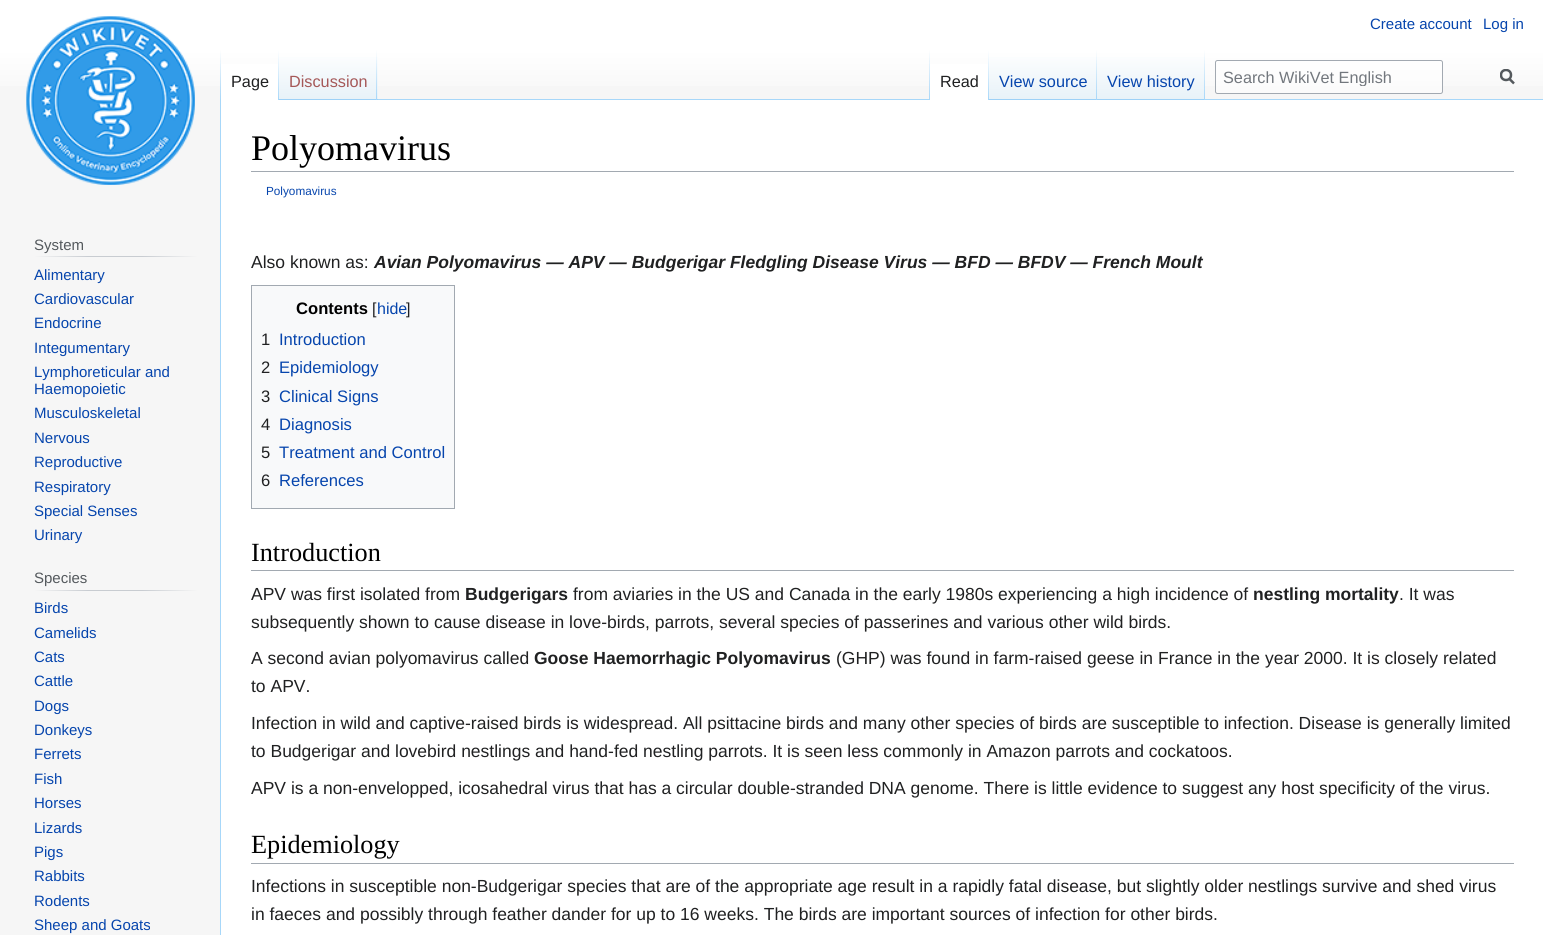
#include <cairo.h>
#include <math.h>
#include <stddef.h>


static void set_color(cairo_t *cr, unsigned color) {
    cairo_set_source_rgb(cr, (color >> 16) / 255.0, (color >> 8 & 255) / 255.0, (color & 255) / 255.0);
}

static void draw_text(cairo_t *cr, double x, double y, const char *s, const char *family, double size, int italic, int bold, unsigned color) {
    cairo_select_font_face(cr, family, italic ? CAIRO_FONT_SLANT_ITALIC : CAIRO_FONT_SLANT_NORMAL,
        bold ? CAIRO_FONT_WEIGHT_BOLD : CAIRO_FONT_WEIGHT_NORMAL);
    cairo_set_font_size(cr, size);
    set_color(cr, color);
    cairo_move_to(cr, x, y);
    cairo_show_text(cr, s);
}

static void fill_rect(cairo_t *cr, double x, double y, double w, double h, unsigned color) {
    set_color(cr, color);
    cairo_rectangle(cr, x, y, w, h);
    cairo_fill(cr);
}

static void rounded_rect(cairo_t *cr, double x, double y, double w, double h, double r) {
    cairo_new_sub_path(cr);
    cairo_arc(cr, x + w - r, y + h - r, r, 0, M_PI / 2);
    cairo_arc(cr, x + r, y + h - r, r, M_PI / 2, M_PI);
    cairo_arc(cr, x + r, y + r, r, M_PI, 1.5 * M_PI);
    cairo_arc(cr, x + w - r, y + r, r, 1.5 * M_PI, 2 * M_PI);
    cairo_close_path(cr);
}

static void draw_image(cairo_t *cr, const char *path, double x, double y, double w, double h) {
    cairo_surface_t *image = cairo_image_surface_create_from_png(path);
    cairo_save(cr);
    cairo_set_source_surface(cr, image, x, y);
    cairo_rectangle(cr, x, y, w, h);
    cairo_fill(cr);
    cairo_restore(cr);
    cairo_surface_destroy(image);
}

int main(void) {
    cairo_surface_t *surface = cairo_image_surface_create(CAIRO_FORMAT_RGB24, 1543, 935);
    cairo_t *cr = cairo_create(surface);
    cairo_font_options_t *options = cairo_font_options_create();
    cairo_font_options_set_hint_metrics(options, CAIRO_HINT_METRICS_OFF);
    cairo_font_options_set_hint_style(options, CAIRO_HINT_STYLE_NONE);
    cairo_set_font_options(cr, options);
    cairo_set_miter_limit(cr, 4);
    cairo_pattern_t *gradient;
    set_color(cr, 0xF6F6F6);
    cairo_paint(cr);
    gradient = cairo_pattern_create_linear(772, 0, 772, 100);
    cairo_pattern_add_color_stop_rgba(gradient, 0.5, 1, 1, 1, 1);
    cairo_pattern_add_color_stop_rgba(gradient, 1, 0.965, 0.965, 0.965, 1);
    cairo_set_source(cr, gradient);
    cairo_pattern_destroy(gradient);
    cairo_rectangle(cr, 0, 0, 1543, 86);
    cairo_fill(cr);
    draw_text(cr, 1370, 29, "Create account", "Liberation Sans", 15, 0, 0, 0x0645AD);
    draw_text(cr, 1483, 29, "Log in", "Liberation Sans", 15, 0, 0, 0x0645AD);
    fill_rect(cr, 220, 99, 1, 836, 0xA7D7F9);
    gradient = cairo_pattern_create_linear(221, 50, 221, 100);
    cairo_pattern_add_color_stop_rgba(gradient, 0, 0.655, 0.843, 0.976, 0);
    cairo_pattern_add_color_stop_rgba(gradient, 1, 0.655, 0.843, 0.976, 1);
    cairo_set_source(cr, gradient);
    cairo_pattern_destroy(gradient);
    cairo_rectangle(cr, 220, 50, 1, 50);
    cairo_fill(cr);
    fill_rect(cr, 221, 64, 57, 36, 0xFFFFFF);
    gradient = cairo_pattern_create_linear(278, 50, 278, 100);
    cairo_pattern_add_color_stop_rgba(gradient, 0, 1, 1, 1, 1);
    cairo_pattern_add_color_stop_rgba(gradient, 1, 0.655, 0.843, 0.976, 1);
    cairo_set_source(cr, gradient);
    cairo_pattern_destroy(gradient);
    cairo_rectangle(cr, 278, 50, 1, 50);
    cairo_fill(cr);
    draw_text(cr, 231, 87, "Page", "Liberation Sans", 16.25, 0, 0, 0x202122);
    gradient = cairo_pattern_create_linear(328, 100, 328, 50);
    cairo_pattern_add_color_stop_rgba(gradient, 0, 0.467, 0.757, 0.965, 1);
    cairo_pattern_add_color_stop_rgba(gradient, 0.03, 0.91, 0.949, 0.973, 1);
    cairo_pattern_add_color_stop_rgba(gradient, 1, 1, 1, 1, 1);
    cairo_set_source(cr, gradient);
    cairo_pattern_destroy(gradient);
    cairo_rectangle(cr, 279, 57, 99, 43);
    cairo_fill(cr);
    gradient = cairo_pattern_create_linear(377, 50, 377, 100);
    cairo_pattern_add_color_stop_rgba(gradient, 0, 0.655, 0.843, 0.976, 0);
    cairo_pattern_add_color_stop_rgba(gradient, 1, 0.655, 0.843, 0.976, 1);
    cairo_set_source(cr, gradient);
    cairo_pattern_destroy(gradient);
    cairo_rectangle(cr, 376, 50, 1, 50);
    cairo_fill(cr);
    draw_text(cr, 289, 87, "Discussion", "Liberation Sans", 16.25, 0, 0, 0xA55858);
    fill_rect(cr, 378, 99, 1165, 1, 0xA7D7F9);
    gradient = cairo_pattern_create_linear(929, 50, 929, 100);
    cairo_pattern_add_color_stop_rgba(gradient, 0, 0.655, 0.843, 0.976, 0);
    cairo_pattern_add_color_stop_rgba(gradient, 1, 0.655, 0.843, 0.976, 1);
    cairo_set_source(cr, gradient);
    cairo_pattern_destroy(gradient);
    cairo_rectangle(cr, 929, 50, 1, 50);
    cairo_fill(cr);
    fill_rect(cr, 930, 64, 58, 36, 0xFFFFFF);
    gradient = cairo_pattern_create_linear(988, 50, 988, 100);
    cairo_pattern_add_color_stop_rgba(gradient, 0, 1, 1, 1, 1);
    cairo_pattern_add_color_stop_rgba(gradient, 1, 0.655, 0.843, 0.976, 1);
    cairo_set_source(cr, gradient);
    cairo_pattern_destroy(gradient);
    cairo_rectangle(cr, 988, 50, 1, 50);
    cairo_fill(cr);
    draw_text(cr, 940, 87, "Read", "Liberation Sans", 16.25, 0, 0, 0x202122);
    gradient = cairo_pattern_create_linear(1043, 100, 1043, 50);
    cairo_pattern_add_color_stop_rgba(gradient, 0, 0.467, 0.757, 0.965, 1);
    cairo_pattern_add_color_stop_rgba(gradient, 0.03, 0.91, 0.949, 0.973, 1);
    cairo_pattern_add_color_stop_rgba(gradient, 1, 1, 1, 1, 1);
    cairo_set_source(cr, gradient);
    cairo_pattern_destroy(gradient);
    cairo_rectangle(cr, 989, 57, 109, 43);
    cairo_fill(cr);
    gradient = cairo_pattern_create_linear(1097, 50, 1097, 100);
    cairo_pattern_add_color_stop_rgba(gradient, 0, 0.655, 0.843, 0.976, 0);
    cairo_pattern_add_color_stop_rgba(gradient, 1, 0.655, 0.843, 0.976, 1);
    cairo_set_source(cr, gradient);
    cairo_pattern_destroy(gradient);
    cairo_rectangle(cr, 1096, 50, 1, 50);
    cairo_fill(cr);
    draw_text(cr, 999, 87, "View source", "Liberation Sans", 16.25, 0, 0, 0x0645AD);
    gradient = cairo_pattern_create_linear(1151, 100, 1151, 50);
    cairo_pattern_add_color_stop_rgba(gradient, 0, 0.467, 0.757, 0.965, 1);
    cairo_pattern_add_color_stop_rgba(gradient, 0.03, 0.91, 0.949, 0.973, 1);
    cairo_pattern_add_color_stop_rgba(gradient, 1, 1, 1, 1, 1);
    cairo_set_source(cr, gradient);
    cairo_pattern_destroy(gradient);
    cairo_rectangle(cr, 1098, 57, 107, 43);
    cairo_fill(cr);
    gradient = cairo_pattern_create_linear(1204, 50, 1204, 100);
    cairo_pattern_add_color_stop_rgba(gradient, 0, 0.655, 0.843, 0.976, 0);
    cairo_pattern_add_color_stop_rgba(gradient, 1, 0.655, 0.843, 0.976, 1);
    cairo_set_source(cr, gradient);
    cairo_pattern_destroy(gradient);
    cairo_rectangle(cr, 1204, 50, 1, 50);
    cairo_fill(cr);
    draw_text(cr, 1107, 87, "View history", "Liberation Sans", 16.25, 0, 0, 0x0645AD);
    cairo_set_source_rgba(cr, 1, 1, 1, 0.5);
    rounded_rect(cr, 1215.5, 60.5, 227, 33, 2);
    cairo_fill_preserve(cr);
    set_color(cr, 0xA2A9B1);
    cairo_set_line_width(cr, 1);
    cairo_stroke(cr);
    cairo_save(cr);
    cairo_rectangle(cr, 1223, 68, 188, 18);
    cairo_clip(cr);
    draw_text(cr, 1223, 83, "Search WikiVet English", "Liberation Sans", 16.25, 0, 0, 0x72777D);
    cairo_restore(cr);
    cairo_new_path(cr);
    cairo_move_to(cr, 1514, 83.5);
    cairo_line_to(cr, 1509, 78.5);
    set_color(cr, 0x54595D);
    cairo_set_line_width(cr, 2.5);
    cairo_stroke(cr);
    cairo_save(cr);
    cairo_rectangle(cr, 1500, 69, 15, 16);
    cairo_clip(cr);
    cairo_arc(cr, 1506, 75, 5, 0, 2 * M_PI);
    cairo_stroke(cr);
    cairo_restore(cr);
    draw_image(cr, "assets/img1.png", 26, 16, 169, 169);
    gradient = cairo_pattern_create_linear(34, 257, 198, 257);
    cairo_pattern_add_color_stop_rgba(gradient, 0, 0.965, 0.965, 0.965, 1);
    cairo_pattern_add_color_stop_rgba(gradient, 0.33, 0.784, 0.8, 0.82, 1);
    cairo_pattern_add_color_stop_rgba(gradient, 0.66, 0.784, 0.8, 0.82, 1);
    cairo_pattern_add_color_stop_rgba(gradient, 1, 0.965, 0.965, 0.965, 1);
    cairo_set_source(cr, gradient);
    cairo_pattern_destroy(gradient);
    cairo_rectangle(cr, 34, 256, 164, 1);
    cairo_fill(cr);
    draw_text(cr, 34, 250, "System", "Liberation Sans", 15, 0, 0, 0x54595D);
    draw_text(cr, 34, 280, "Alimentary", "Liberation Sans", 15, 0, 0, 0x0645AD);
    draw_text(cr, 34, 304, "Cardiovascular", "Liberation Sans", 15, 0, 0, 0x0645AD);
    draw_text(cr, 34, 328, "Endocrine", "Liberation Sans", 15, 0, 0, 0x0645AD);
    draw_text(cr, 34, 353, "Integumentary", "Liberation Sans", 15, 0, 0, 0x0645AD);
    draw_text(cr, 34, 377, "Lymphoreticular and", "Liberation Sans", 15, 0, 0, 0x0645AD);
    draw_text(cr, 34, 394, "Haemopoietic", "Liberation Sans", 15, 0, 0, 0x0645AD);
    draw_text(cr, 34, 418, "Musculoskeletal", "Liberation Sans", 15, 0, 0, 0x0645AD);
    draw_text(cr, 34, 443, "Nervous", "Liberation Sans", 15, 0, 0, 0x0645AD);
    draw_text(cr, 34, 467, "Reproductive", "Liberation Sans", 15, 0, 0, 0x0645AD);
    draw_text(cr, 34, 492, "Respiratory", "Liberation Sans", 15, 0, 0, 0x0645AD);
    draw_text(cr, 34, 516, "Special Senses", "Liberation Sans", 15, 0, 0, 0x0645AD);
    draw_text(cr, 34, 540, "Urinary", "Liberation Sans", 15, 0, 0, 0x0645AD);
    gradient = cairo_pattern_create_linear(34, 591, 198, 591);
    cairo_pattern_add_color_stop_rgba(gradient, 0, 0.965, 0.965, 0.965, 1);
    cairo_pattern_add_color_stop_rgba(gradient, 0.33, 0.784, 0.8, 0.82, 1);
    cairo_pattern_add_color_stop_rgba(gradient, 0.66, 0.784, 0.8, 0.82, 1);
    cairo_pattern_add_color_stop_rgba(gradient, 1, 0.965, 0.965, 0.965, 1);
    cairo_set_source(cr, gradient);
    cairo_pattern_destroy(gradient);
    cairo_rectangle(cr, 34, 590, 164, 1);
    cairo_fill(cr);
    draw_text(cr, 34, 583, "Species", "Liberation Sans", 15, 0, 0, 0x54595D);
    draw_text(cr, 34, 613, "Birds", "Liberation Sans", 15, 0, 0, 0x0645AD);
    draw_text(cr, 34, 638, "Camelids", "Liberation Sans", 15, 0, 0, 0x0645AD);
    draw_text(cr, 34, 662, "Cats", "Liberation Sans", 15, 0, 0, 0x0645AD);
    draw_text(cr, 34, 686, "Cattle", "Liberation Sans", 15, 0, 0, 0x0645AD);
    draw_text(cr, 34, 711, "Dogs", "Liberation Sans", 15, 0, 0, 0x0645AD);
    draw_text(cr, 34, 735, "Donkeys", "Liberation Sans", 15, 0, 0, 0x0645AD);
    draw_text(cr, 34, 759, "Ferrets", "Liberation Sans", 15, 0, 0, 0x0645AD);
    draw_text(cr, 34, 784, "Fish", "Liberation Sans", 15, 0, 0, 0x0645AD);
    draw_text(cr, 34, 808, "Horses", "Liberation Sans", 15, 0, 0, 0x0645AD);
    draw_text(cr, 34, 833, "Lizards", "Liberation Sans", 15, 0, 0, 0x0645AD);
    draw_text(cr, 34, 857, "Pigs", "Liberation Sans", 15, 0, 0, 0x0645AD);
    draw_text(cr, 34, 881, "Rabbits", "Liberation Sans", 15, 0, 0, 0x0645AD);
    draw_text(cr, 34, 906, "Rodents", "Liberation Sans", 15, 0, 0, 0x0645AD);
    draw_text(cr, 34, 930, "Sheep and Goats", "Liberation Sans", 15, 0, 0, 0x0645AD);
    fill_rect(cr, 221, 100, 1322, 835, 0xFFFFFF);
    fill_rect(cr, 251, 171, 1263, 1, 0xA2A9B1);
    draw_text(cr, 251, 160, "Polyomavirus", "Liberation Serif", 36, 0, 0, 0x000000);
    draw_text(cr, 266, 195, "Polyomavirus", "Liberation Sans", 11.75, 0, 0, 0x0645AD);
    draw_text(cr, 251, 268, "Also known as:", "Liberation Sans", 17.5, 0, 0, 0x202122);
    draw_text(cr, 374, 268, "Avian Polyomavirus — APV — Budgerigar Fledgling Disease Virus — BFD — BFDV — French Moult", "Liberation Sans", 17.5, 1, 1, 0x202122);
    set_color(cr, 0xF8F9FA);
    cairo_rectangle(cr, 251.5, 285.5, 203, 223);
    cairo_fill_preserve(cr);
    set_color(cr, 0xA2A9B1);
    cairo_set_line_width(cr, 1);
    cairo_stroke(cr);
    draw_text(cr, 296, 314, "Contents", "Liberation Sans", 16.6, 0, 1, 0x000000);
    draw_text(cr, 372, 314, "[", "Liberation Sans", 16, 0, 0, 0x202122);
    draw_text(cr, 377, 314, "hide", "Liberation Sans", 16, 0, 0, 0x0645AD);
    draw_text(cr, 406, 314, "]", "Liberation Sans", 16, 0, 0, 0x202122);
    draw_text(cr, 261, 345, "1", "Liberation Sans", 16.6, 0, 0, 0x202122);
    draw_text(cr, 279, 345, "Introduction", "Liberation Sans", 16.6, 0, 0, 0x0645AD);
    draw_text(cr, 261, 373, "2", "Liberation Sans", 16.6, 0, 0, 0x202122);
    draw_text(cr, 279, 373, "Epidemiology", "Liberation Sans", 16.6, 0, 0, 0x0645AD);
    draw_text(cr, 261, 402, "3", "Liberation Sans", 16.6, 0, 0, 0x202122);
    draw_text(cr, 279, 402, "Clinical Signs", "Liberation Sans", 16.6, 0, 0, 0x0645AD);
    draw_text(cr, 261, 430, "4", "Liberation Sans", 16.6, 0, 0, 0x202122);
    draw_text(cr, 279, 430, "Diagnosis", "Liberation Sans", 16.6, 0, 0, 0x0645AD);
    draw_text(cr, 261, 458, "5", "Liberation Sans", 16.6, 0, 0, 0x202122);
    draw_text(cr, 279, 458, "Treatment and Control", "Liberation Sans", 16.6, 0, 0, 0x0645AD);
    draw_text(cr, 261, 486, "6", "Liberation Sans", 16.6, 0, 0, 0x202122);
    draw_text(cr, 279, 486, "References", "Liberation Sans", 16.6, 0, 0, 0x0645AD);
    fill_rect(cr, 251, 570, 1263, 1, 0xA2A9B1);
    draw_text(cr, 251, 561, "Introduction", "Liberation Serif", 26.25, 0, 0, 0x000000);
    draw_text(cr, 251, 600, "APV was first isolated from", "Liberation Sans", 17.5, 0, 0, 0x202122);
    draw_text(cr, 465, 600, "Budgerigars", "Liberation Sans", 17.5, 0, 1, 0x202122);
    draw_text(cr, 573, 600, "from aviaries in the US and Canada in the early 1980s experiencing a high incidence of", "Liberation Sans", 17.5, 0, 0, 0x202122);
    draw_text(cr, 1253, 600, "nestling mortality", "Liberation Sans", 17.5, 0, 1, 0x202122);
    draw_text(cr, 1399, 600, ". It was", "Liberation Sans", 17.5, 0, 0, 0x202122);
    draw_text(cr, 251, 628, "subsequently shown to cause disease in love-birds, parrots, several species of passerines and various other wild birds.", "Liberation Sans", 17.5, 0, 0, 0x202122);
    draw_text(cr, 251, 664, "A second avian polyomavirus called", "Liberation Sans", 17.5, 0, 0, 0x202122);
    draw_text(cr, 534, 664, "Goose Haemorrhagic Polyomavirus", "Liberation Sans", 17.5, 0, 1, 0x202122);
    draw_text(cr, 836, 664, "(GHP) was found in farm-raised geese in France in the year 2000. It is closely related", "Liberation Sans", 17.5, 0, 0, 0x202122);
    draw_text(cr, 251, 692, "to APV.", "Liberation Sans", 17.5, 0, 0, 0x202122);
    draw_text(cr, 251, 729, "Infection in wild and captive-raised birds is widespread. All psittacine birds and many other species of birds are susceptible to infection. Disease is generally limited", "Liberation Sans", 17.5, 0, 0, 0x202122);
    draw_text(cr, 251, 757, "to Budgerigar and lovebird nestlings and hand-fed nestling parrots. It is seen less commonly in Amazon parrots and cockatoos.", "Liberation Sans", 17.5, 0, 0, 0x202122);
    draw_text(cr, 251, 794, "APV is a non-envelopped, icosahedral virus that has a circular double-stranded DNA genome. There is little evidence to suggest any host specificity of the virus.", "Liberation Sans", 17.5, 0, 0, 0x202122);
    fill_rect(cr, 251, 863, 1263, 1, 0xA2A9B1);
    draw_text(cr, 251, 853, "Epidemiology", "Liberation Serif", 26.25, 0, 0, 0x000000);
    draw_text(cr, 251, 892, "Infections in susceptible non-Budgerigar species that are of the appropriate age result in a rapidly fatal disease, but slightly older nestlings survive and shed virus", "Liberation Sans", 17.5, 0, 0, 0x202122);
    draw_text(cr, 251, 920, "in faeces and possibly through feather dander for up to 16 weeks. The birds are important sources of infection for other birds.", "Liberation Sans", 17.5, 0, 0, 0x202122);
    cairo_surface_write_to_png(surface, "output.png");
    cairo_font_options_destroy(options);
    cairo_destroy(cr);
    cairo_surface_destroy(surface);
    return 0;
}
